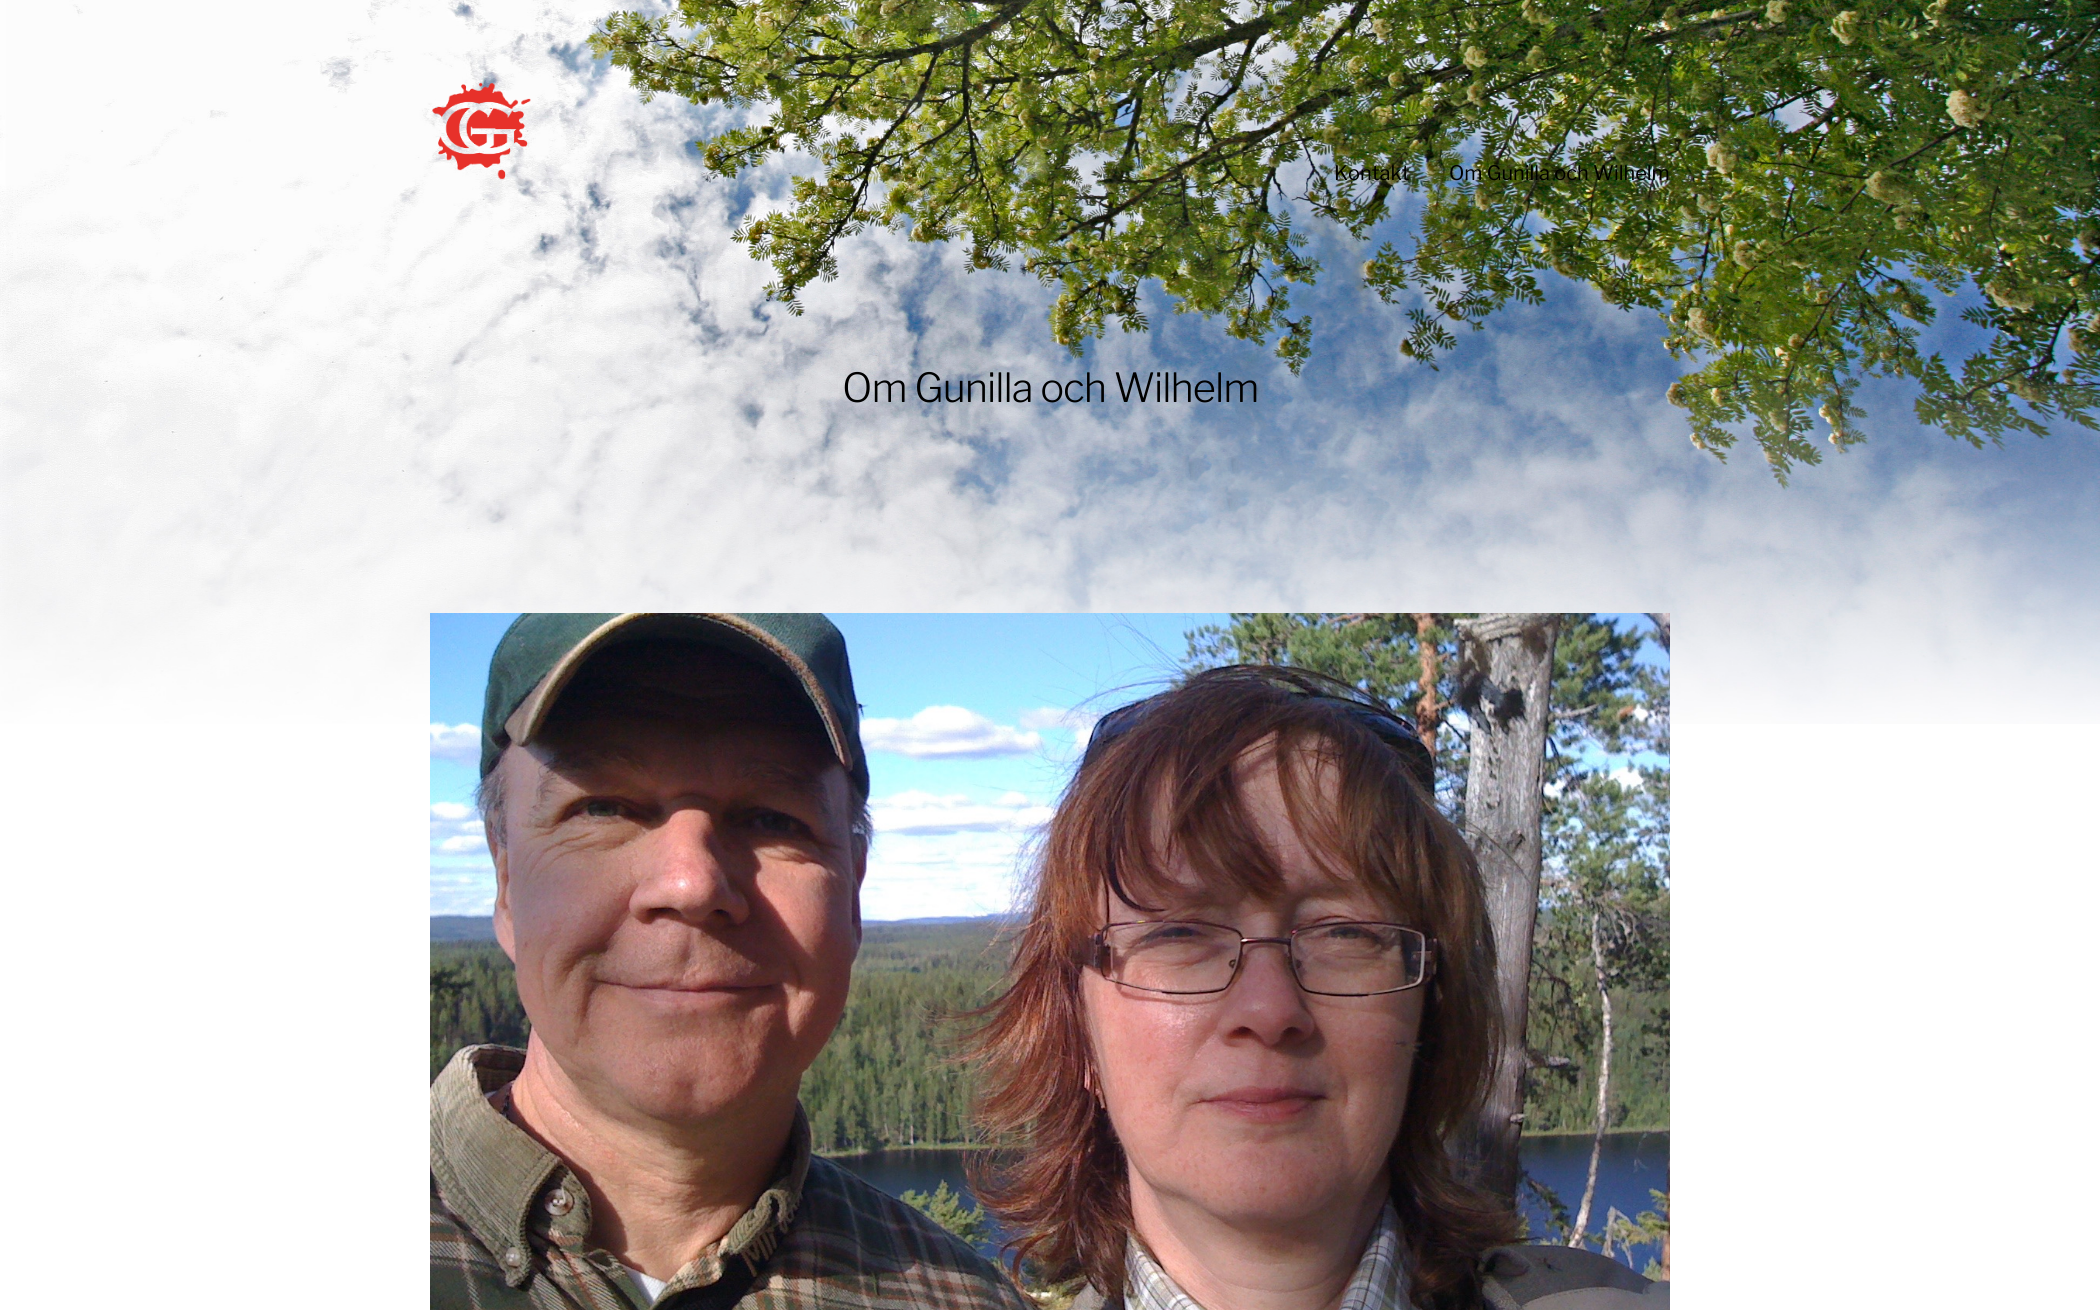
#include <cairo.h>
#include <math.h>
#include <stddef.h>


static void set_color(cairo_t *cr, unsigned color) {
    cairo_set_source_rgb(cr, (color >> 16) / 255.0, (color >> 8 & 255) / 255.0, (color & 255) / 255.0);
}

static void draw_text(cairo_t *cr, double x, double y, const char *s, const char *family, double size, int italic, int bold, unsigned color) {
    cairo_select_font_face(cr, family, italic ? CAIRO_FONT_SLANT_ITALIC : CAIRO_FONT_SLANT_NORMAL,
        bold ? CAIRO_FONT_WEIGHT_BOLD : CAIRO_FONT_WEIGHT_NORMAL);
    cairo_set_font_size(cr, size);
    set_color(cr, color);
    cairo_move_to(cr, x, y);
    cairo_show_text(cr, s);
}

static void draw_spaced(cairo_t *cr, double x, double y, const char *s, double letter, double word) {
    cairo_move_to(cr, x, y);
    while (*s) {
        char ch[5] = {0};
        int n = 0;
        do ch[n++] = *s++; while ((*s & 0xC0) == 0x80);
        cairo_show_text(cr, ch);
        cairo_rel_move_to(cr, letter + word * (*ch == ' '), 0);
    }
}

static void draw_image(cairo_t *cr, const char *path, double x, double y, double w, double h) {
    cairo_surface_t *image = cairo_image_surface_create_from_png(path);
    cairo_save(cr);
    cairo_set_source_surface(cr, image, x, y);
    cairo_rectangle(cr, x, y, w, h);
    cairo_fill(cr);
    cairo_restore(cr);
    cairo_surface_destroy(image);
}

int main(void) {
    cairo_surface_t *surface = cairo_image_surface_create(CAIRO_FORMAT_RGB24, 2100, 1310);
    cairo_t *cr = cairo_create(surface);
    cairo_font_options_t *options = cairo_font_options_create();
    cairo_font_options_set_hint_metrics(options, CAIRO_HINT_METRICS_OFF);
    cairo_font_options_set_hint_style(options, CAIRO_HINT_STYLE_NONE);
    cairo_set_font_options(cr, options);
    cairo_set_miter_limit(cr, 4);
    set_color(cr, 0xFFFFFF);
    cairo_paint(cr);
    draw_image(cr, "assets/img1.png", 0, 0, 2100, 724);
    draw_image(cr, "assets/img2.png", 432, 82, 99, 98);
    draw_text(cr, 1334, 180, "Kontakt", "Libre Franklin", 20, 0, 0, 0x000000);
    draw_text(cr, 1449, 180, "Om Gunilla och Wilhelm", "Libre Franklin", 20, 0, 0, 0x000000);
    cairo_select_font_face(cr, "Libre Franklin Light", CAIRO_FONT_SLANT_NORMAL, CAIRO_FONT_WEIGHT_NORMAL);
    cairo_set_font_size(cr, 40);
    draw_spaced(cr, 842, 402, "Om Gunilla och Wilhelm", -1, 0);
    draw_image(cr, "assets/img3.png", 430, 613, 1240, 697);
    cairo_surface_write_to_png(surface, "output.png");
    cairo_font_options_destroy(options);
    cairo_destroy(cr);
    cairo_surface_destroy(surface);
    return 0;
}
